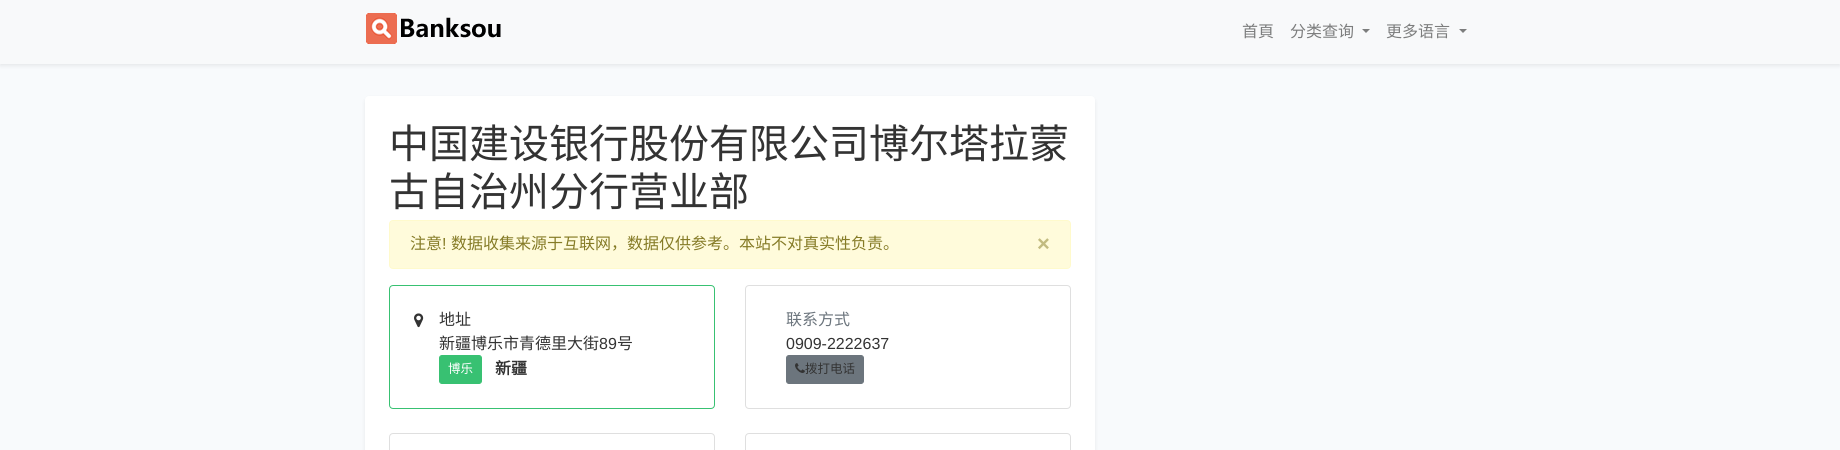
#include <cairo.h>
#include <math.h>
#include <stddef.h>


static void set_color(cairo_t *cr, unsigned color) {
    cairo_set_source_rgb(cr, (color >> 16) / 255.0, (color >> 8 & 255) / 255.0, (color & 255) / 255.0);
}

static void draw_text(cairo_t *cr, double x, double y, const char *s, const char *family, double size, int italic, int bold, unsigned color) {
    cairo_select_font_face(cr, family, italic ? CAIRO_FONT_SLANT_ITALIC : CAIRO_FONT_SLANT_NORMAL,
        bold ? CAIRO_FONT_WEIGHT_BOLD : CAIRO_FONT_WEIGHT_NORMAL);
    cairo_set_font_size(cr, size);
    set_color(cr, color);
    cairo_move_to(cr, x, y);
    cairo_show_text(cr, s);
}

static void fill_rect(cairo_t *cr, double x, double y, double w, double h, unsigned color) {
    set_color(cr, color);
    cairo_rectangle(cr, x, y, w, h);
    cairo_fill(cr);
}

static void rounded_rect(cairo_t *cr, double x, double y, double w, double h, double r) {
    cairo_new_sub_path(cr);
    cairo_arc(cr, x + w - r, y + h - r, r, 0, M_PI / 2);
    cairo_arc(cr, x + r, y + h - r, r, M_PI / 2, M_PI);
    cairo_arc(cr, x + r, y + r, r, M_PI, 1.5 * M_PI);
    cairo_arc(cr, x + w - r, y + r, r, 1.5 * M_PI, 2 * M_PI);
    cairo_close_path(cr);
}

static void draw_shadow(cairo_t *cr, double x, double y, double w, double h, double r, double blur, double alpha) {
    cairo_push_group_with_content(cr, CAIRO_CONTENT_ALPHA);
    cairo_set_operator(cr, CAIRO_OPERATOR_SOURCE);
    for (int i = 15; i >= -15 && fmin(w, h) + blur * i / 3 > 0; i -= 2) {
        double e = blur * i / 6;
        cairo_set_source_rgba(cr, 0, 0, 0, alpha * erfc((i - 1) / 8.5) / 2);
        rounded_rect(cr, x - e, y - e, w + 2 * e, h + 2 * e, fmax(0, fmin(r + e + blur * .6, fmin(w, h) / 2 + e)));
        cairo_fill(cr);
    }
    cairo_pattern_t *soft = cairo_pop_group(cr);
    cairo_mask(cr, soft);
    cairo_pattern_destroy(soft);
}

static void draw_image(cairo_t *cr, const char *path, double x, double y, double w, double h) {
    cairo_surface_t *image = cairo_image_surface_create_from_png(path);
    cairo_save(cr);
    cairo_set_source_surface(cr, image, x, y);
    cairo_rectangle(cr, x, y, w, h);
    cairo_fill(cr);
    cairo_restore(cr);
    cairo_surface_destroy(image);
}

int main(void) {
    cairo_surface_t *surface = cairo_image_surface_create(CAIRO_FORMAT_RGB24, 1840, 450);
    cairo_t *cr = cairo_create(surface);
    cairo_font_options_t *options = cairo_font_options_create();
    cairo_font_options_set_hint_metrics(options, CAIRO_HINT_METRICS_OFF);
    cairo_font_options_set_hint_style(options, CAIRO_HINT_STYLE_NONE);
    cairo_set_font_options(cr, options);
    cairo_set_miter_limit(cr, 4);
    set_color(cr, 0xF8FAFC);
    cairo_paint(cr);
    set_color(cr, 0x000000);
    draw_shadow(cr, 0, 2, 1840, 64, 0, 2, 0.07);
    fill_rect(cr, 0, 0, 1840, 64, 0xF8F9FA);
    draw_image(cr, "assets/img1.png", 366, 13, 135, 31);
    draw_text(cr, 1242, 37, "首頁", "Noto Sans CJK SC", 16, 0, 0, 0x7C7D7D);
    draw_text(cr, 1290, 37, "分类查询", "Noto Sans CJK SC", 16, 0, 0, 0x7C7D7D);
    cairo_new_path(cr);
    cairo_move_to(cr, 1362, 29);
    cairo_line_to(cr, 1370, 29);
    cairo_line_to(cr, 1366, 33);
    cairo_close_path(cr);
    cairo_fill(cr);
    draw_text(cr, 1386, 37, "更多语言", "Noto Sans CJK SC", 16, 0, 0, 0x7C7D7D);
    cairo_new_path(cr);
    cairo_move_to(cr, 1459, 29);
    cairo_line_to(cr, 1467, 29);
    cairo_line_to(cr, 1463, 33);
    cairo_close_path(cr);
    cairo_fill(cr);
    set_color(cr, 0x000000);
    draw_shadow(cr, 365, 98, 730, 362, 4, 2, 0.07);
    set_color(cr, 0xFFFFFF);
    rounded_rect(cr, 365, 96, 730, 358, 4);
    cairo_fill(cr);
    draw_text(cr, 389, 158, "中国建设银行股份有限公司博尔塔拉蒙", "Noto Sans CJK SC", 40, 0, 0, 0x333333);
    draw_text(cr, 389, 206, "古自治州分行营业部", "Noto Sans CJK SC", 40, 0, 0, 0x333333);
    set_color(cr, 0xFFFBDB);
    rounded_rect(cr, 389.5, 220.5, 681, 48, 3.5);
    cairo_fill_preserve(cr);
    set_color(cr, 0xFFFACC);
    cairo_set_line_width(cr, 1);
    cairo_stroke(cr);
    draw_text(cr, 410, 249, "注意", "Noto Sans CJK SC", 16, 0, 0, 0x857B26);
    draw_text(cr, 442, 249, "!", "Liberation Sans", 16, 0, 0, 0x857B26);
    draw_text(cr, 451, 249, "数据收集来源于互联网，数据仅供参考。本站不对真实性负责。", "Noto Sans CJK SC", 16, 0, 0, 0x857B26);
    draw_text(cr, 1037, 251, "×", "Liberation Sans", 22, 0, 1, 0xC2BB81);
    rounded_rect(cr, 389.5, 285.5, 325, 123, 3.5);
    set_color(cr, 0x38C172);
    cairo_stroke(cr);
    draw_image(cr, "assets/img2.png", 414, 313, 10, 15);
    draw_text(cr, 439, 325, "地址", "Noto Sans CJK SC", 16, 0, 0, 0x333333);
    draw_text(cr, 439, 349, "新疆博乐市青德里大街", "Noto Sans CJK SC", 16, 0, 0, 0x333333);
    draw_text(cr, 599, 349, "89", "Liberation Sans", 16, 0, 0, 0x333333);
    draw_text(cr, 617, 349, "号", "Noto Sans CJK SC", 16, 0, 0, 0x333333);
    set_color(cr, 0x38C172);
    rounded_rect(cr, 439.5, 355.5, 42, 28, 2.5);
    cairo_fill_preserve(cr);
    cairo_stroke(cr);
    draw_text(cr, 448, 373, "博乐", "Noto Sans CJK SC", 12.5, 0, 0, 0xFFFFFF);
    draw_text(cr, 495, 374, "新疆", "Noto Sans CJK SC", 16, 0, 1, 0x333333);
    rounded_rect(cr, 745.5, 285.5, 325, 123, 3.5);
    set_color(cr, 0xDFDFDF);
    cairo_stroke(cr);
    draw_text(cr, 786, 325, "联系方式", "Noto Sans CJK SC", 16, 0, 0, 0x6C757D);
    draw_text(cr, 786, 349, "0909-2222637", "Liberation Sans", 16, 0, 0, 0x333333);
    set_color(cr, 0x6C757D);
    rounded_rect(cr, 786.5, 355.5, 77, 28, 2.5);
    cairo_fill_preserve(cr);
    cairo_stroke(cr);
    draw_image(cr, "assets/img3.png", 795, 363, 10, 10);
    draw_text(cr, 805, 373, "拨打电话", "Noto Sans CJK SC", 12.5, 0, 0, 0x333333);
    rounded_rect(cr, 389.5, 433.5, 325, 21, 3.5);
    set_color(cr, 0xDFDFDF);
    cairo_stroke(cr);
    rounded_rect(cr, 745.5, 433.5, 325, 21, 3.5);
    cairo_stroke(cr);
    cairo_surface_write_to_png(surface, "output.png");
    cairo_font_options_destroy(options);
    cairo_destroy(cr);
    cairo_surface_destroy(surface);
    return 0;
}
